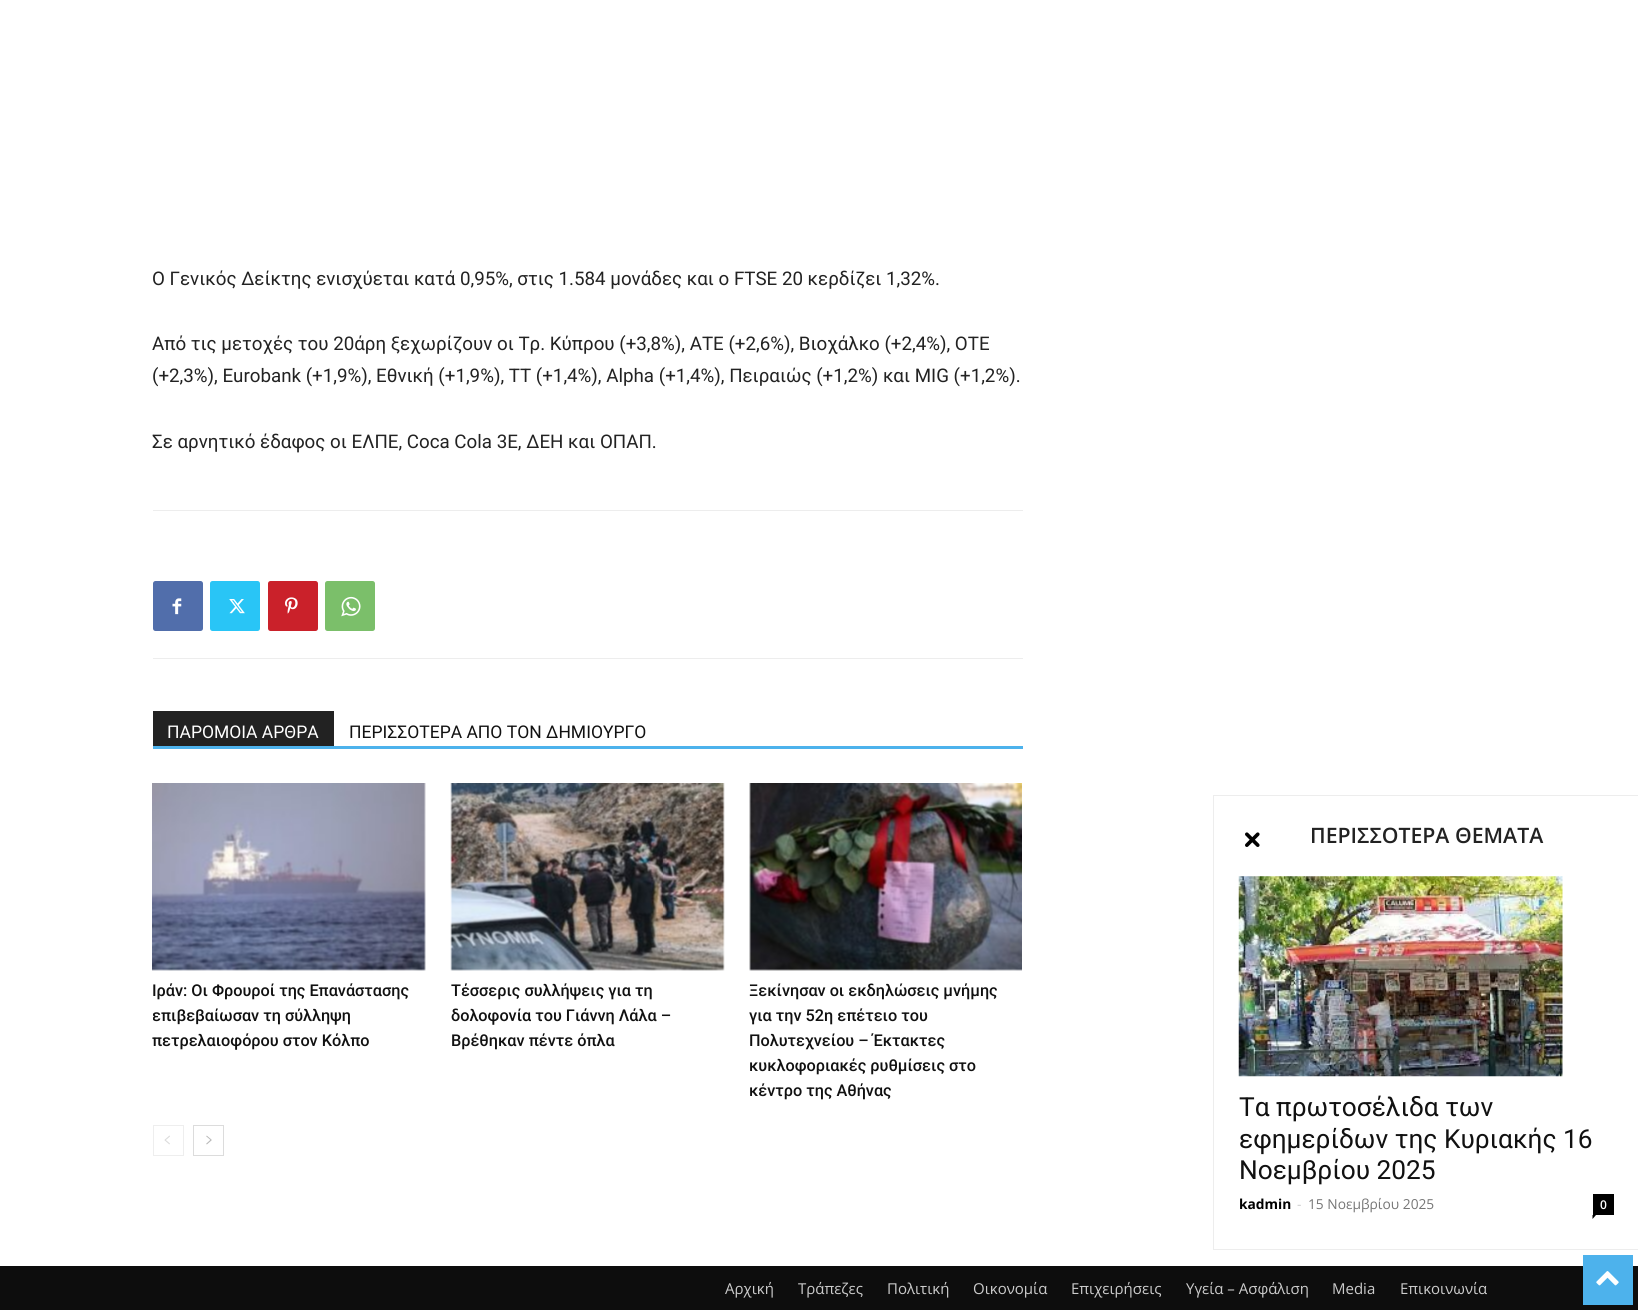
#include <cairo.h>
#include <math.h>
#include <stddef.h>


static void set_color(cairo_t *cr, unsigned color) {
    cairo_set_source_rgb(cr, (color >> 16) / 255.0, (color >> 8 & 255) / 255.0, (color & 255) / 255.0);
}

static void draw_text(cairo_t *cr, double x, double y, const char *s, const char *family, double size, int italic, int bold, unsigned color) {
    cairo_select_font_face(cr, family, italic ? CAIRO_FONT_SLANT_ITALIC : CAIRO_FONT_SLANT_NORMAL,
        bold ? CAIRO_FONT_WEIGHT_BOLD : CAIRO_FONT_WEIGHT_NORMAL);
    cairo_set_font_size(cr, size);
    set_color(cr, color);
    cairo_move_to(cr, x, y);
    cairo_show_text(cr, s);
}

static void fill_rect(cairo_t *cr, double x, double y, double w, double h, unsigned color) {
    set_color(cr, color);
    cairo_rectangle(cr, x, y, w, h);
    cairo_fill(cr);
}

static void rounded_rect(cairo_t *cr, double x, double y, double w, double h, double r) {
    cairo_new_sub_path(cr);
    cairo_arc(cr, x + w - r, y + h - r, r, 0, M_PI / 2);
    cairo_arc(cr, x + r, y + h - r, r, M_PI / 2, M_PI);
    cairo_arc(cr, x + r, y + r, r, M_PI, 1.5 * M_PI);
    cairo_arc(cr, x + w - r, y + r, r, 1.5 * M_PI, 2 * M_PI);
    cairo_close_path(cr);
}

static void draw_image(cairo_t *cr, const char *path, double x, double y, double w, double h) {
    cairo_surface_t *image = cairo_image_surface_create_from_png(path);
    cairo_save(cr);
    cairo_set_source_surface(cr, image, x, y);
    cairo_rectangle(cr, x, y, w, h);
    cairo_fill(cr);
    cairo_restore(cr);
    cairo_surface_destroy(image);
}

int main(void) {
    cairo_surface_t *surface = cairo_image_surface_create(CAIRO_FORMAT_RGB24, 1638, 1310);
    cairo_t *cr = cairo_create(surface);
    cairo_font_options_t *options = cairo_font_options_create();
    cairo_font_options_set_hint_metrics(options, CAIRO_HINT_METRICS_OFF);
    cairo_font_options_set_hint_style(options, CAIRO_HINT_STYLE_NONE);
    cairo_set_font_options(cr, options);
    cairo_set_miter_limit(cr, 4);
    set_color(cr, 0xFFFFFF);
    cairo_paint(cr);
    draw_text(cr, 152, 285, "Ο Γενικός Δείκτης ενισχύεται κατά 0,95%, στις 1.584 μονάδες και ο FTSE 20 κερδίζει 1,32%.", "Roboto", 18.75, 0, 0, 0x222222);
    draw_text(cr, 152, 350, "Από τις μετοχές του 20άρη ξεχωρίζουν οι Τρ. Κύπρου (+3,8%), ΑΤΕ (+2,6%), Βιοχάλκο (+2,4%), ΟΤΕ", "Roboto", 18.75, 0, 0, 0x222222);
    draw_text(cr, 152, 382, "(+2,3%), Eurobank (+1,9%), Εθνική (+1,9%), ΤΤ (+1,4%), Alpha (+1,4%), Πειραιώς (+1,2%) και MIG (+1,2%).", "Roboto", 18.75, 0, 0, 0x222222);
    draw_text(cr, 152, 448, "Σε αρνητικό έδαφος οι ΕΛΠΕ, Coca Cola 3E, ΔΕΗ και ΟΠΑΠ.", "Roboto", 18.75, 0, 0, 0x222222);
    fill_rect(cr, 153, 510, 870, 1, 0xEDEDED);
    fill_rect(cr, 153, 658, 870, 1, 0xEDEDED);
    set_color(cr, 0x516EAB);
    rounded_rect(cr, 153, 581, 50, 50, 2.5);
    cairo_fill(cr);
    draw_image(cr, "assets/img1.png", 172, 598, 10, 17);
    set_color(cr, 0x29C5F6);
    rounded_rect(cr, 210, 581, 50, 50, 2.5);
    cairo_fill(cr);
    draw_image(cr, "assets/img2.png", 229, 599, 16, 15);
    set_color(cr, 0xCA212A);
    rounded_rect(cr, 268, 581, 50, 50, 2.5);
    cairo_fill(cr);
    draw_image(cr, "assets/img3.png", 285, 597, 13, 17);
    set_color(cr, 0x7BBF6A);
    rounded_rect(cr, 325, 581, 50, 50, 2.5);
    cairo_fill(cr);
    draw_image(cr, "assets/img4.png", 341, 596, 20, 21);
    fill_rect(cr, 153, 746, 870, 3, 0x4DB2EC);
    fill_rect(cr, 153, 711, 181, 35, 0x222222);
    draw_text(cr, 167, 738, "ΠΑΡΟΜΟΙΑ ΑΡΘΡΑ", "Roboto", 17.5, 0, 0, 0xFFFFFF);
    draw_text(cr, 349, 738, "ΠΕΡΙΣΣΟΤΕΡΑ ΑΠΟ ΤΟΝ ΔΗΜΙΟΥΡΓΟ", "Roboto", 17.5, 0, 0, 0x111111);
    draw_image(cr, "assets/img5.png", 152, 783, 274, 188);
    draw_text(cr, 152, 996, "Ιράν: Οι Φρουροί της Επανάστασης", "Roboto Medium", 16.25, 0, 0, 0x111111);
    cairo_save(cr);
    cairo_rectangle(cr, 153, 711, 870, 445);
    cairo_clip(cr);
    draw_text(cr, 152, 1021, "επιβεβαίωσαν τη σύλληψη", "Roboto Medium", 16.25, 0, 0, 0x111111);
    cairo_restore(cr);
    draw_text(cr, 152, 1046, "πετρελαιοφόρου στον Κόλπο", "Roboto Medium", 16.25, 0, 0, 0x111111);
    draw_image(cr, "assets/img6.png", 450, 783, 275, 188);
    draw_text(cr, 451, 996, "Τέσσερις συλλήψεις για τη", "Roboto Medium", 16.25, 0, 0, 0x111111);
    draw_text(cr, 451, 1021, "δολοφονία του Γιάννη Λάλα –", "Roboto Medium", 16.25, 0, 0, 0x111111);
    draw_text(cr, 451, 1046, "Βρέθηκαν πέντε όπλα", "Roboto Medium", 16.25, 0, 0, 0x111111);
    draw_image(cr, "assets/img7.png", 749, 783, 273, 188);
    draw_text(cr, 749, 996, "Ξεκίνησαν οι εκδηλώσεις μνήμης", "Roboto Medium", 16.25, 0, 0, 0x111111);
    draw_text(cr, 749, 1021, "για την 52η επέτειο του", "Roboto Medium", 16.25, 0, 0, 0x111111);
    draw_text(cr, 749, 1046, "Πολυτεχνείου – Έκτακτες", "Roboto Medium", 16.25, 0, 0, 0x111111);
    draw_text(cr, 749, 1071, "κυκλοφοριακές ρυθμίσεις στο", "Roboto Medium", 16.25, 0, 0, 0x111111);
    draw_text(cr, 749, 1096, "κέντρο της Αθήνας", "Roboto Medium", 16.25, 0, 0, 0x111111);
    cairo_rectangle(cr, 153.5, 1125.5, 30, 30);
    set_color(cr, 0xEEEEEE);
    cairo_set_line_width(cr, 1);
    cairo_stroke(cr);
    draw_image(cr, "assets/img8.png", 164, 1135, 6, 10);
    cairo_rectangle(cr, 193.5, 1125.5, 30, 30);
    set_color(cr, 0xDCDCDC);
    cairo_stroke(cr);
    draw_image(cr, "assets/img9.png", 206, 1135, 6, 10);
    fill_rect(cr, 0, 1266, 1638, 44, 0x0D0D0D);
    draw_text(cr, 725, 1294, "Αρχική", "Open Sans", 15, 0, 0, 0xCCCCCC);
    draw_text(cr, 798, 1294, "Τράπεζες", "Open Sans", 15, 0, 0, 0xCCCCCC);
    draw_text(cr, 887, 1294, "Πολιτική", "Open Sans", 15, 0, 0, 0xCCCCCC);
    draw_text(cr, 973, 1294, "Οικονομία", "Open Sans", 15, 0, 0, 0xCCCCCC);
    draw_text(cr, 1071, 1294, "Επιχειρήσεις", "Open Sans", 15, 0, 0, 0xCCCCCC);
    draw_text(cr, 1186, 1294, "Υγεία – Ασφάλιση", "Open Sans", 15, 0, 0, 0xCCCCCC);
    draw_text(cr, 1332, 1294, "Media", "Open Sans", 15, 0, 0, 0xCCCCCC);
    draw_text(cr, 1400, 1294, "Επικοινωνία", "Open Sans", 15, 0, 0, 0xCCCCCC);
    fill_rect(cr, 1213, 795, 425, 1, 0xEDEDED);
    fill_rect(cr, 1213, 1249, 425, 1, 0xEDEDED);
    fill_rect(cr, 1213, 795, 1, 455, 0xEDEDED);
    draw_image(cr, "assets/img10.png", 1245, 832, 15, 15);
    draw_text(cr, 1310, 843, "ΠΕΡΙΣΣΟΤΕΡΑ ΘΕΜΑΤΑ", "Open Sans SemiBold", 21.25, 0, 0, 0x222222);
    draw_image(cr, "assets/img11.png", 1238, 876, 325, 201);
    draw_text(cr, 1239, 1116, "Τα πρωτοσέλιδα των", "Roboto", 26.25, 0, 0, 0x111111);
    draw_text(cr, 1239, 1148, "εφημερίδων της Κυριακής 16", "Roboto", 26.25, 0, 0, 0x111111);
    draw_text(cr, 1239, 1179, "Νοεμβρίου 2025", "Roboto", 26.25, 0, 0, 0x111111);
    draw_text(cr, 1239, 1209, "kadmin", "Open Sans", 13.75, 0, 1, 0x000000);
    draw_text(cr, 1297, 1209, "-", "Open Sans", 13.75, 0, 0, 0xCCCCCC);
    draw_text(cr, 1308, 1209, "15 Νοεμβρίου 2025", "Open Sans", 13.75, 0, 0, 0x767676);
    fill_rect(cr, 1593, 1194, 21, 21, 0x000000);
    draw_text(cr, 1600, 1209, "0", "Open Sans SemiBold", 12, 0, 0, 0xFFFFFF);
    set_color(cr, 0x000000);
    cairo_new_path(cr);
    cairo_move_to(cr, 1592.5, 1215);
    cairo_line_to(cr, 1596, 1215);
    cairo_line_to(cr, 1592.5, 1219);
    cairo_close_path(cr);
    cairo_fill(cr);
    fill_rect(cr, 1583, 1255, 50, 50, 0x4DB2EC);
    draw_image(cr, "assets/img12.png", 1596, 1271, 23, 15);
    cairo_surface_write_to_png(surface, "output.png");
    cairo_font_options_destroy(options);
    cairo_destroy(cr);
    cairo_surface_destroy(surface);
    return 0;
}
